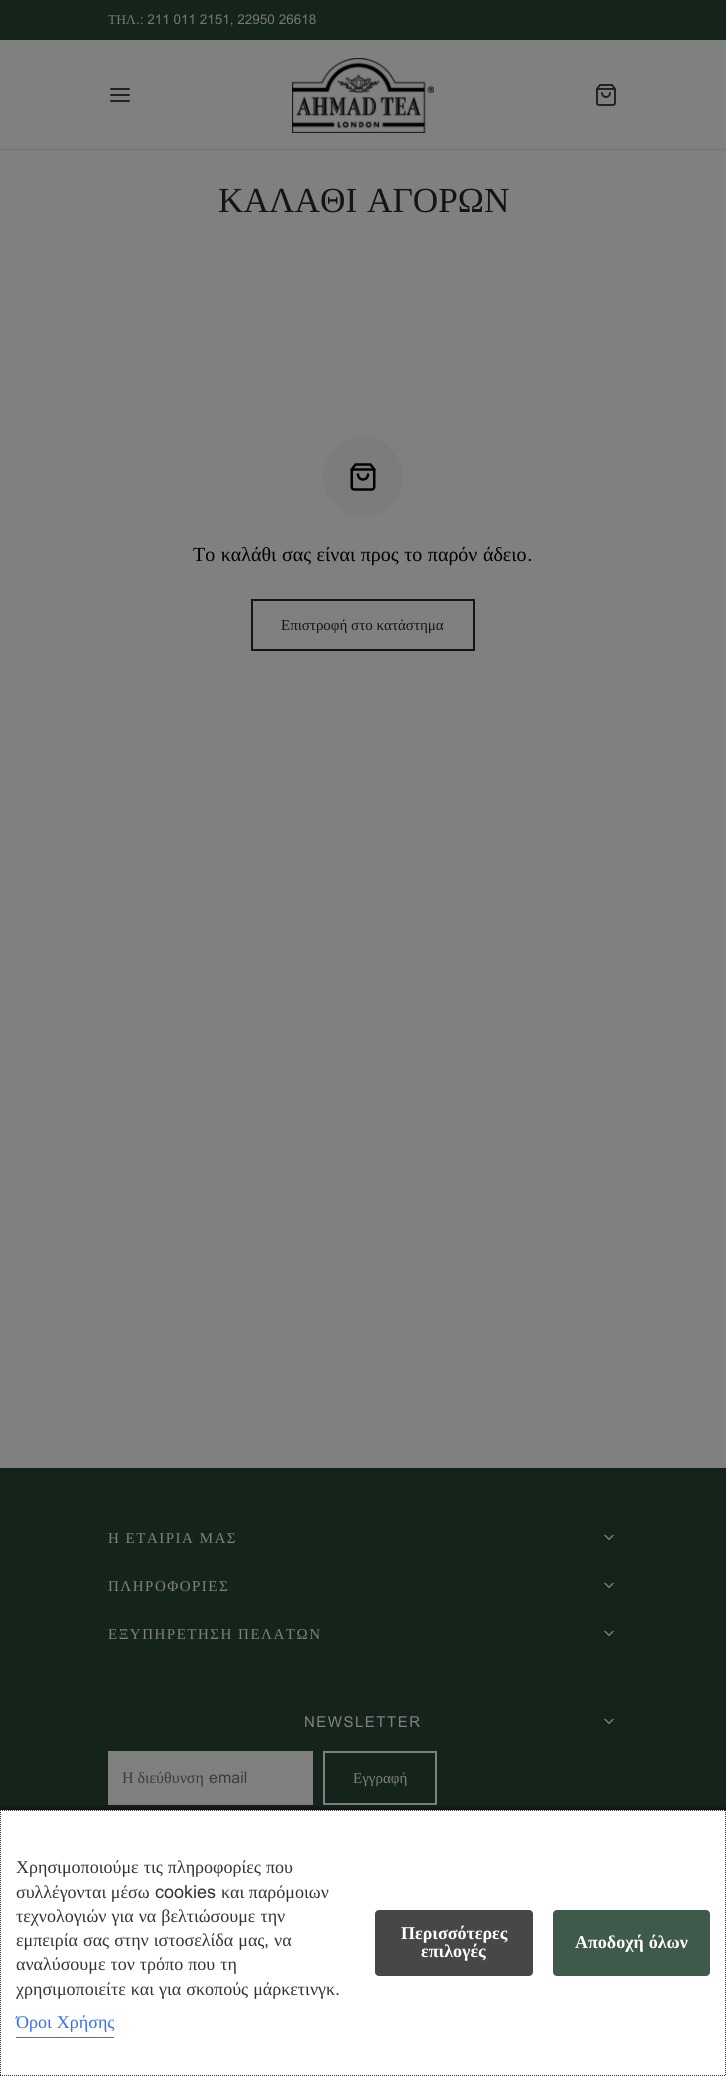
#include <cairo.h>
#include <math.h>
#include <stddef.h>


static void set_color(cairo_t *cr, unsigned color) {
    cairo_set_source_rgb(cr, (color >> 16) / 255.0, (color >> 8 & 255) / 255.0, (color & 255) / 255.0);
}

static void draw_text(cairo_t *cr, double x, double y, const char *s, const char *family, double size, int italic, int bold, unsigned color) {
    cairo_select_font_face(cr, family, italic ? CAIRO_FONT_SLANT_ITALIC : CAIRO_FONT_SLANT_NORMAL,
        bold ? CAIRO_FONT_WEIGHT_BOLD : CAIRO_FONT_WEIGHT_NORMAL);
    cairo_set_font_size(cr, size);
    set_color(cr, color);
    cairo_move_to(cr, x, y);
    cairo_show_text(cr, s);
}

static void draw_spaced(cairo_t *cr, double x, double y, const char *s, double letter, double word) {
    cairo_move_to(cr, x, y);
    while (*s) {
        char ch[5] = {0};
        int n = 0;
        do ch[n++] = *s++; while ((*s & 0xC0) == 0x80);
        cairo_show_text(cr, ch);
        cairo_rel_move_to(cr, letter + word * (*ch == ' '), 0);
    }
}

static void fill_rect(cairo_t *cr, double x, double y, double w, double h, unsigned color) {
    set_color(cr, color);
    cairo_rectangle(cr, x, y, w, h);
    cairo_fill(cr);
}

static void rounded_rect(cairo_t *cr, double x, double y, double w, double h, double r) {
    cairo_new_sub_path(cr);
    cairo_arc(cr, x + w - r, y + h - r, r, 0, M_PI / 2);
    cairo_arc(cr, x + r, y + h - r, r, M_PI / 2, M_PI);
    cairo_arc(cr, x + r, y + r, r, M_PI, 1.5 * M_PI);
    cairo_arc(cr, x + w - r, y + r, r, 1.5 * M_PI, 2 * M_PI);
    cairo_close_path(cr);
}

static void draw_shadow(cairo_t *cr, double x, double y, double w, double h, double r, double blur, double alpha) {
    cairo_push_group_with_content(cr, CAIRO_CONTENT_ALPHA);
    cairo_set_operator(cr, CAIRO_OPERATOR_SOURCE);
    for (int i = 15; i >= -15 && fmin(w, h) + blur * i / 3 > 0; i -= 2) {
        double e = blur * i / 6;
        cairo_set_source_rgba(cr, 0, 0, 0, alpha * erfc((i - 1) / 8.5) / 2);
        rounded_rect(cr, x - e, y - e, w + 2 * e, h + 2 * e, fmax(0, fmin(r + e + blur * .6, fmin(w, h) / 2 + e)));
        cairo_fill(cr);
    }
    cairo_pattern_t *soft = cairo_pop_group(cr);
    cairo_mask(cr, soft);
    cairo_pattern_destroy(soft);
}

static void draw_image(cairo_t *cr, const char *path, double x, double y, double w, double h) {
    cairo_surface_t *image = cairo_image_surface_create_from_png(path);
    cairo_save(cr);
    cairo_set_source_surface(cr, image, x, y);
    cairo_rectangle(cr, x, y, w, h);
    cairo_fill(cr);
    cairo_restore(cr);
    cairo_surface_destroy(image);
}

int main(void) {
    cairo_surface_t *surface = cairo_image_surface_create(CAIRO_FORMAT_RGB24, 726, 2076);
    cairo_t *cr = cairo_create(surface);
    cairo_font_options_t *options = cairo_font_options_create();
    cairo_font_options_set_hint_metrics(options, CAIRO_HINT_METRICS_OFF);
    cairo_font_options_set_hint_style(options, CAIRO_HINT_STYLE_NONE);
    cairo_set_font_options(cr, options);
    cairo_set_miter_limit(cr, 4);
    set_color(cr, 0x808080);
    cairo_paint(cr);
    fill_rect(cr, 0, 0, 726, 40, 0x15241B);
    draw_text(cr, 108, 24, "ΤΗΛ", "Liberation Serif", 13.5, 0, 0, 0x777777);
    draw_text(cr, 136, 24, ".: 211 011 2151, 22950 26618", "Arial", 13.5, 0, 0, 0x777777);
    cairo_new_path(cr);
    cairo_move_to(cr, 111, 95);
    cairo_line_to(cr, 129, 95);
    cairo_move_to(cr, 111, 89);
    cairo_line_to(cr, 129, 89);
    cairo_move_to(cr, 111, 101);
    cairo_line_to(cr, 129, 101);
    set_color(cr, 0x222222);
    cairo_set_line_cap(cr, CAIRO_LINE_CAP_ROUND);
    cairo_set_line_join(cr, CAIRO_LINE_JOIN_ROUND);
    cairo_stroke(cr);
    draw_image(cr, "assets/img1.png", 292, 58, 142, 75);
    draw_image(cr, "assets/img2.png", 596, 84, 20, 22);
    fill_rect(cr, 0, 149, 726, 1, 0x737373);
    cairo_select_font_face(cr, "Liberation Serif", CAIRO_FONT_SLANT_NORMAL, CAIRO_FONT_WEIGHT_NORMAL);
    cairo_set_font_size(cr, 35.25);
    set_color(cr, 0x141414);
    draw_spaced(cr, 218, 212, "ΚΑΛΑΘΙ ΑΓΟΡΩΝ", 0, 1);
    set_color(cr, 0x7C7C7C);
    cairo_new_path(cr);
    cairo_arc(cr, 363, 477, 40, 0, 2 * M_PI);
    cairo_fill(cr);
    draw_image(cr, "assets/img3.png", 350, 463, 26, 28);
    cairo_set_font_size(cr, 20);
    set_color(cr, 0x000000);
    draw_spaced(cr, 193, 561, "Το καλάθι σας είναι προς το παρόν άδειο", 0, 0.5);
    draw_text(cr, 527, 561, ".", "Arial", 20, 0, 0, 0x000000);
    cairo_rectangle(cr, 252, 600, 222, 50);
    set_color(cr, 0x141414);
    cairo_set_line_cap(cr, CAIRO_LINE_CAP_BUTT);
    cairo_set_line_join(cr, CAIRO_LINE_JOIN_MITER);
    cairo_stroke(cr);
    draw_text(cr, 281, 630, "Επιστροφή στο κατάστημα", "Liberation Serif", 15, 0, 0, 0x141414);
    fill_rect(cr, 0, 1469, 726, 341, 0x15241B);
    fill_rect(cr, 0, 1468, 726, 1, 0x132119);
    set_color(cr, 0x808080);
    draw_spaced(cr, 108, 1543, "Η ΕΤΑΙΡΙΑ ΜΑΣ", 1.5, 0);
    draw_image(cr, "assets/img4.png", 604, 1534, 10, 6);
    draw_spaced(cr, 108, 1591, "ΠΛΗΡΟΦΟΡΙΕΣ", 1.5, 0);
    draw_image(cr, "assets/img4.png", 604, 1582, 10, 6);
    draw_spaced(cr, 108, 1639, "ΕΞΥΠΗΡΕΤΗΣΗ ΠΕΛΑΤΩΝ", 1.5, 0);
    draw_image(cr, "assets/img4.png", 604, 1630, 10, 6);
    cairo_select_font_face(cr, "Arial", CAIRO_FONT_SLANT_NORMAL, CAIRO_FONT_WEIGHT_NORMAL);
    draw_spaced(cr, 304, 1727, "NEWSLETTER", 1.5, 0);
    draw_image(cr, "assets/img4.png", 604, 1718, 10, 6);
    fill_rect(cr, 108, 1751, 205, 54, 0x808080);
    draw_text(cr, 122, 1783, "Η διεύθυνση", "Liberation Serif", 16, 0, 0, 0x3B3B3B);
    draw_text(cr, 209, 1783, "email", "Arial", 16, 0, 0, 0x3B3B3B);
    cairo_rectangle(cr, 324, 1752, 112, 52);
    set_color(cr, 0x808080);
    cairo_stroke(cr);
    draw_text(cr, 353, 1783, "Εγγραφή", "Liberation Serif", 15, 0, 0, 0x808080);
    set_color(cr, 0x000000);
    draw_shadow(cr, 0, 1808, 726, 266, 0, 2.5, 0.5);
    fill_rect(cr, 0, 1810, 726, 266, 0xFFFFFF);
    cairo_new_path(cr);
    cairo_move_to(cr, 0, 1810.5);
    cairo_line_to(cr, 726, 1810.5);
    set_color(cr, 0x333333);
    cairo_set_line_width(cr, 1);
    cairo_set_dash(cr, (double[]){1, 1}, 2, 0);
    cairo_stroke(cr);
    cairo_new_path(cr);
    cairo_move_to(cr, 725.5, 1810);
    cairo_line_to(cr, 725.5, 2076);
    cairo_stroke(cr);
    cairo_new_path(cr);
    cairo_move_to(cr, 0, 2075.5);
    cairo_line_to(cr, 726, 2075.5);
    cairo_stroke(cr);
    cairo_new_path(cr);
    cairo_move_to(cr, 0.5, 1810);
    cairo_line_to(cr, 0.5, 2076);
    cairo_stroke(cr);
    cairo_set_font_size(cr, 18);
    draw_spaced(cr, 16, 1873, "Χρησιμοποιούμε τις πληροφορίες που", 0, 0.5);
    draw_text(cr, 16, 1898, "συλλέγονται μέσω", "Liberation Serif", 18, 0, 0, 0x333333);
    draw_text(cr, 155, 1898, "cookies", "Arial", 18, 0, 0, 0x333333);
    draw_text(cr, 221, 1898, "και παρόμοιων", "Liberation Serif", 18, 0, 0, 0x333333);
    draw_spaced(cr, 16, 1922, "τεχνολογιών για να βελτιώσουμε την", 0, 0.5);
    draw_spaced(cr, 16, 1946, "εμπειρία σας στην ιστοσελίδα μας", 0, 0.5);
    draw_text(cr, 264, 1946, ",", "Arial", 18, 0, 0, 0x333333);
    draw_text(cr, 274, 1946, "να", "Liberation Serif", 18, 0, 0, 0x333333);
    draw_spaced(cr, 16, 1970, "αναλύσουμε τον τρόπο που τη", 0, 0.5);
    draw_spaced(cr, 16, 1995, "χρησιμοποιείτε και για σκοπούς μάρκετινγκ", 0, 0.5);
    draw_text(cr, 335, 1995, ".", "Arial", 18, 0, 0, 0x333333);
    cairo_select_font_face(cr, "Liberation Serif", CAIRO_FONT_SLANT_NORMAL, CAIRO_FONT_WEIGHT_NORMAL);
    set_color(cr, 0x376EF0);
    draw_spaced(cr, 16, 2028, "Όροι Χρήσης", 0, 0.5);
    fill_rect(cr, 16, 2037, 98, 1, 0x376EF0);
    set_color(cr, 0x474747);
    rounded_rect(cr, 375, 1910, 158, 66, 4);
    cairo_fill(cr);
    draw_text(cr, 401, 1939, "Περισσότερες", "Liberation Serif", 18, 0, 1, 0xFFFFFF);
    draw_text(cr, 421, 1957, "επιλογές", "Liberation Serif", 18, 0, 1, 0xFFFFFF);
    set_color(cr, 0x3E5A4A);
    rounded_rect(cr, 553, 1910, 157, 66, 4);
    cairo_fill(cr);
    set_color(cr, 0xFFFFFF);
    draw_spaced(cr, 575, 1948, "Αποδοχή όλων", 0, 0.5);
    cairo_surface_write_to_png(surface, "output.png");
    cairo_font_options_destroy(options);
    cairo_destroy(cr);
    cairo_surface_destroy(surface);
    return 0;
}
